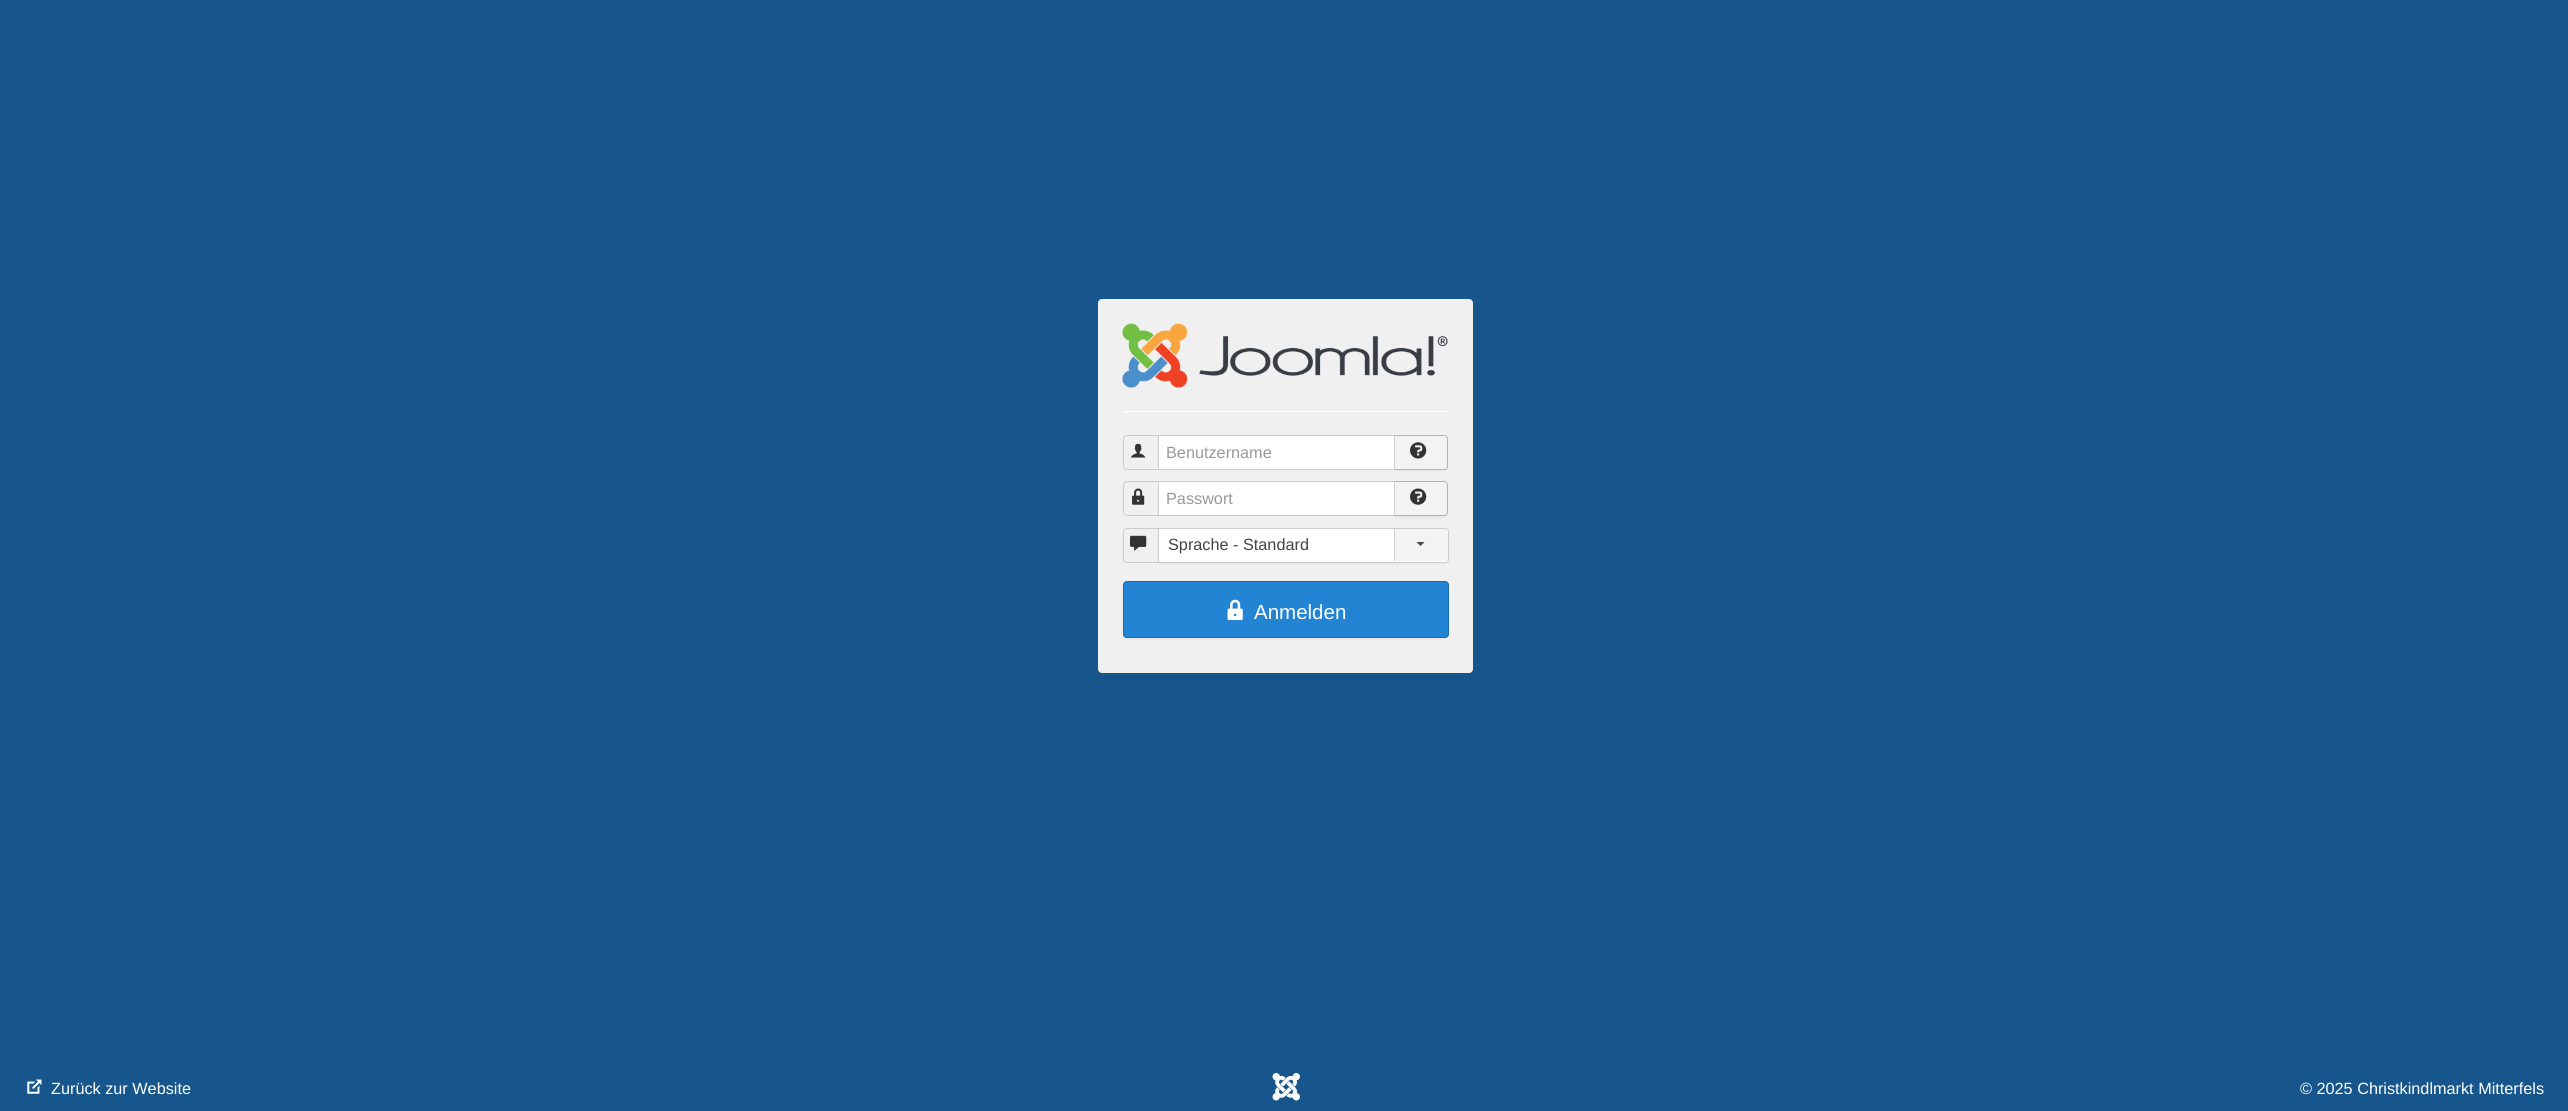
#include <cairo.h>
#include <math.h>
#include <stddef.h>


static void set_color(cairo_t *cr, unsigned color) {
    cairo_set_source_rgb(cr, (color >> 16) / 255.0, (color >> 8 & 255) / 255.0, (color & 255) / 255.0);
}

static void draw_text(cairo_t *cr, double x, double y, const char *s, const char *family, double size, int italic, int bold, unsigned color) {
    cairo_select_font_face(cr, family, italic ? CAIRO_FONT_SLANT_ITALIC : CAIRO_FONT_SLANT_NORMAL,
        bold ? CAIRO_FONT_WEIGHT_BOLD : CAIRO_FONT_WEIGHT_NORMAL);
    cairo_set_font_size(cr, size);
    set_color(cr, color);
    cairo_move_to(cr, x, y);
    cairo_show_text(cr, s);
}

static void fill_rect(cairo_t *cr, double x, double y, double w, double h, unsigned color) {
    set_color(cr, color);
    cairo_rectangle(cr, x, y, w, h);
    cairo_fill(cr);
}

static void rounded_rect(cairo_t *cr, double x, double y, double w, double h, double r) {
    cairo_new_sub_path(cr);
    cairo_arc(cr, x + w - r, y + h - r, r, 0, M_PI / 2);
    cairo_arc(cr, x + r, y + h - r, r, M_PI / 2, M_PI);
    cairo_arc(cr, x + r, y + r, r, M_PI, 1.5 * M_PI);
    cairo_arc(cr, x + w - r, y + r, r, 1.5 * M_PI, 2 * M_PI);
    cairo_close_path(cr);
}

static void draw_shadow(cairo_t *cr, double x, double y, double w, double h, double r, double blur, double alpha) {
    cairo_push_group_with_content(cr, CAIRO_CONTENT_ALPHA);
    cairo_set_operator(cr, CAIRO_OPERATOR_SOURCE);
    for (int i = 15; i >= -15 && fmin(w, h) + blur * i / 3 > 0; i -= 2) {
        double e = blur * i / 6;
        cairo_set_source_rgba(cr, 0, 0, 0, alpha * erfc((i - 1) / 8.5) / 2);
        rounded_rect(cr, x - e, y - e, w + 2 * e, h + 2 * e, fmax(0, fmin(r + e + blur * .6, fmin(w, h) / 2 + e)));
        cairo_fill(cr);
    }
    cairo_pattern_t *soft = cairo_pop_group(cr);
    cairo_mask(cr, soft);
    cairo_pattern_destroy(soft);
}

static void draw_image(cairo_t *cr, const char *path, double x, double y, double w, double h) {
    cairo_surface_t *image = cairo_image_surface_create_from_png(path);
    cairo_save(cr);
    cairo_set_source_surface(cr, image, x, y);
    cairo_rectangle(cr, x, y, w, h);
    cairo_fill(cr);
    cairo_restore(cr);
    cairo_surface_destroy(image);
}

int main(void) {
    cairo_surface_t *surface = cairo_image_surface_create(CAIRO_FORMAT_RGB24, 2568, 1111);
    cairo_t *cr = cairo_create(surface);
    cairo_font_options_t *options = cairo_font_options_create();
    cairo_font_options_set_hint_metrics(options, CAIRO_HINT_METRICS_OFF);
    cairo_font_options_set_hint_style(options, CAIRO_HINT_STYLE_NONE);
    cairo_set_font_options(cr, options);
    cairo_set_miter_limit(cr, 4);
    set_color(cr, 0x17568C);
    cairo_paint(cr);
    set_color(cr, 0xF0F0F0);
    rounded_rect(cr, 1098.5, 299.5, 374, 373, 3.5);
    cairo_fill_preserve(cr);
    cairo_set_line_width(cr, 1);
    cairo_stroke(cr);
    draw_image(cr, "assets/img1.png", 1122, 323, 326, 65);
    fill_rect(cr, 1123, 411, 325, 1, 0xFFFFFF);
    cairo_new_path(cr);
    cairo_move_to(cr, 1127, 435.5);
    cairo_line_to(cr, 1158.5, 435.5);
    cairo_line_to(cr, 1158.5, 469.5);
    cairo_line_to(cr, 1127, 469.5);
    cairo_curve_to(cr, 1125, 469.5, 1123.5, 468, 1123.5, 466);
    cairo_line_to(cr, 1123.5, 439);
    cairo_curve_to(cr, 1123.5, 437, 1125, 435.5, 1127, 435.5);
    cairo_close_path(cr);
    set_color(cr, 0xCCCCCC);
    cairo_stroke(cr);
    draw_image(cr, "assets/img2.png", 1131, 443, 15, 15);
    set_color(cr, 0x000000);
    draw_shadow(cr, 1394, 436, 54, 35, 4, 1, 0.05);
    set_color(cr, 0xF3F3F3);
    cairo_new_path(cr);
    cairo_move_to(cr, 1394.5, 435.5);
    cairo_line_to(cr, 1444, 435.5);
    cairo_curve_to(cr, 1446, 435.5, 1447.5, 437, 1447.5, 439);
    cairo_line_to(cr, 1447.5, 466);
    cairo_curve_to(cr, 1447.5, 468, 1446, 469.5, 1444, 469.5);
    cairo_line_to(cr, 1394.5, 469.5);
    cairo_close_path(cr);
    cairo_fill_preserve(cr);
    set_color(cr, 0xB3B3B3);
    cairo_stroke(cr);
    set_color(cr, 0xFFFFFF);
    cairo_rectangle(cr, 1158.5, 435.5, 236, 34);
    cairo_fill_preserve(cr);
    set_color(cr, 0xCCCCCC);
    cairo_stroke(cr);
    draw_text(cr, 1166, 458, "Benutzername", "Liberation Sans", 16.25, 0, 0, 0x999999);
    draw_image(cr, "assets/img3.png", 1410, 442, 17, 17);
    cairo_new_path(cr);
    cairo_move_to(cr, 1127, 481.5);
    cairo_line_to(cr, 1158.5, 481.5);
    cairo_line_to(cr, 1158.5, 515.5);
    cairo_line_to(cr, 1127, 515.5);
    cairo_curve_to(cr, 1125, 515.5, 1123.5, 514, 1123.5, 512);
    cairo_line_to(cr, 1123.5, 485);
    cairo_curve_to(cr, 1123.5, 483, 1125, 481.5, 1127, 481.5);
    cairo_close_path(cr);
    set_color(cr, 0xCCCCCC);
    cairo_stroke(cr);
    draw_image(cr, "assets/img4.png", 1132, 488, 13, 17);
    set_color(cr, 0x000000);
    draw_shadow(cr, 1394, 483, 54, 35, 4, 1, 0.05);
    set_color(cr, 0xF3F3F3);
    cairo_new_path(cr);
    cairo_move_to(cr, 1394.5, 481.5);
    cairo_line_to(cr, 1444, 481.5);
    cairo_curve_to(cr, 1446, 481.5, 1447.5, 483, 1447.5, 485);
    cairo_line_to(cr, 1447.5, 512);
    cairo_curve_to(cr, 1447.5, 514, 1446, 515.5, 1444, 515.5);
    cairo_line_to(cr, 1394.5, 515.5);
    cairo_close_path(cr);
    cairo_fill_preserve(cr);
    set_color(cr, 0xB3B3B3);
    cairo_stroke(cr);
    set_color(cr, 0xFFFFFF);
    cairo_rectangle(cr, 1158.5, 481.5, 236, 34);
    cairo_fill_preserve(cr);
    set_color(cr, 0xCCCCCC);
    cairo_stroke(cr);
    draw_text(cr, 1166, 504, "Passwort", "Liberation Sans", 16.25, 0, 0, 0x999999);
    draw_image(cr, "assets/img5.png", 1410, 488, 17, 17);
    cairo_new_path(cr);
    cairo_move_to(cr, 1127, 528.5);
    cairo_line_to(cr, 1158.5, 528.5);
    cairo_line_to(cr, 1158.5, 562.5);
    cairo_line_to(cr, 1127, 562.5);
    cairo_curve_to(cr, 1125, 562.5, 1123.5, 561, 1123.5, 559);
    cairo_line_to(cr, 1123.5, 532);
    cairo_curve_to(cr, 1123.5, 530, 1125, 528.5, 1127, 528.5);
    cairo_close_path(cr);
    set_color(cr, 0xCCCCCC);
    cairo_stroke(cr);
    draw_image(cr, "assets/img6.png", 1130, 535, 17, 16);
    set_color(cr, 0x000000);
    draw_shadow(cr, 1158, 529, 291, 35, 4, 1, 0.05);
    set_color(cr, 0xFFFFFF);
    cairo_new_path(cr);
    cairo_move_to(cr, 1158, 528);
    cairo_line_to(cr, 1445, 528);
    cairo_curve_to(cr, 1447, 528, 1449, 530, 1449, 532);
    cairo_line_to(cr, 1449, 559);
    cairo_curve_to(cr, 1449, 561, 1447, 563, 1445, 563);
    cairo_line_to(cr, 1158, 563);
    cairo_close_path(cr);
    cairo_fill(cr);
    cairo_new_path(cr);
    cairo_move_to(cr, 1158.5, 528.5);
    cairo_line_to(cr, 1445, 528.5);
    cairo_curve_to(cr, 1447, 528.5, 1448.5, 530, 1448.5, 532);
    cairo_line_to(cr, 1448.5, 559);
    cairo_curve_to(cr, 1448.5, 561, 1447, 562.5, 1445, 562.5);
    cairo_line_to(cr, 1158.5, 562.5);
    cairo_close_path(cr);
    cairo_set_source_rgba(cr, 0, 0, 0, 0.2);
    cairo_stroke(cr);
    draw_text(cr, 1168, 550, "Sprache - Standard", "Liberation Sans", 16.25, 0, 0, 0x444444);
    set_color(cr, 0xF3F3F3);
    cairo_new_path(cr);
    cairo_move_to(cr, 1394, 529);
    cairo_line_to(cr, 1445.5, 529);
    cairo_curve_to(cr, 1447, 529, 1448, 530, 1448, 531.5);
    cairo_line_to(cr, 1448, 558.5);
    cairo_curve_to(cr, 1448, 560, 1447, 561, 1445.5, 561);
    cairo_line_to(cr, 1394, 561);
    cairo_close_path(cr);
    cairo_fill(cr);
    fill_rect(cr, 1394, 529, 1, 32, 0xCCCCCC);
    set_color(cr, 0x444444);
    cairo_new_path(cr);
    cairo_move_to(cr, 1416.5, 542);
    cairo_line_to(cr, 1424.5, 542);
    cairo_line_to(cr, 1420.5, 546);
    cairo_close_path(cr);
    cairo_fill(cr);
    set_color(cr, 0x000000);
    draw_shadow(cr, 1123, 583, 326, 56, 4, 1, 0.05);
    set_color(cr, 0x2384D3);
    rounded_rect(cr, 1123, 581, 326, 57, 4);
    cairo_fill(cr);
    rounded_rect(cr, 1123.5, 581.5, 325, 56, 3.5);
    cairo_set_source_rgba(cr, 0, 0, 0, 0.2);
    cairo_stroke(cr);
    draw_image(cr, "assets/img7.png", 1227, 599, 16, 21);
    draw_text(cr, 1254, 619, "Anmelden", "Liberation Sans", 20.5, 0, 0, 0xFFFFFF);
    draw_image(cr, "assets/img8.png", 27, 1079, 15, 15);
    draw_text(cr, 51, 1094, "Zurück zur Website", "Liberation Sans", 16.25, 0, 0, 0xFFFFFF);
    draw_image(cr, "assets/img9.png", 1272, 1073, 28, 28);
    draw_text(cr, 2300, 1094, "© 2025 Christkindlmarkt Mitterfels", "Liberation Sans", 16.25, 0, 0, 0xFFFFFF);
    cairo_surface_write_to_png(surface, "output.png");
    cairo_font_options_destroy(options);
    cairo_destroy(cr);
    cairo_surface_destroy(surface);
    return 0;
}
